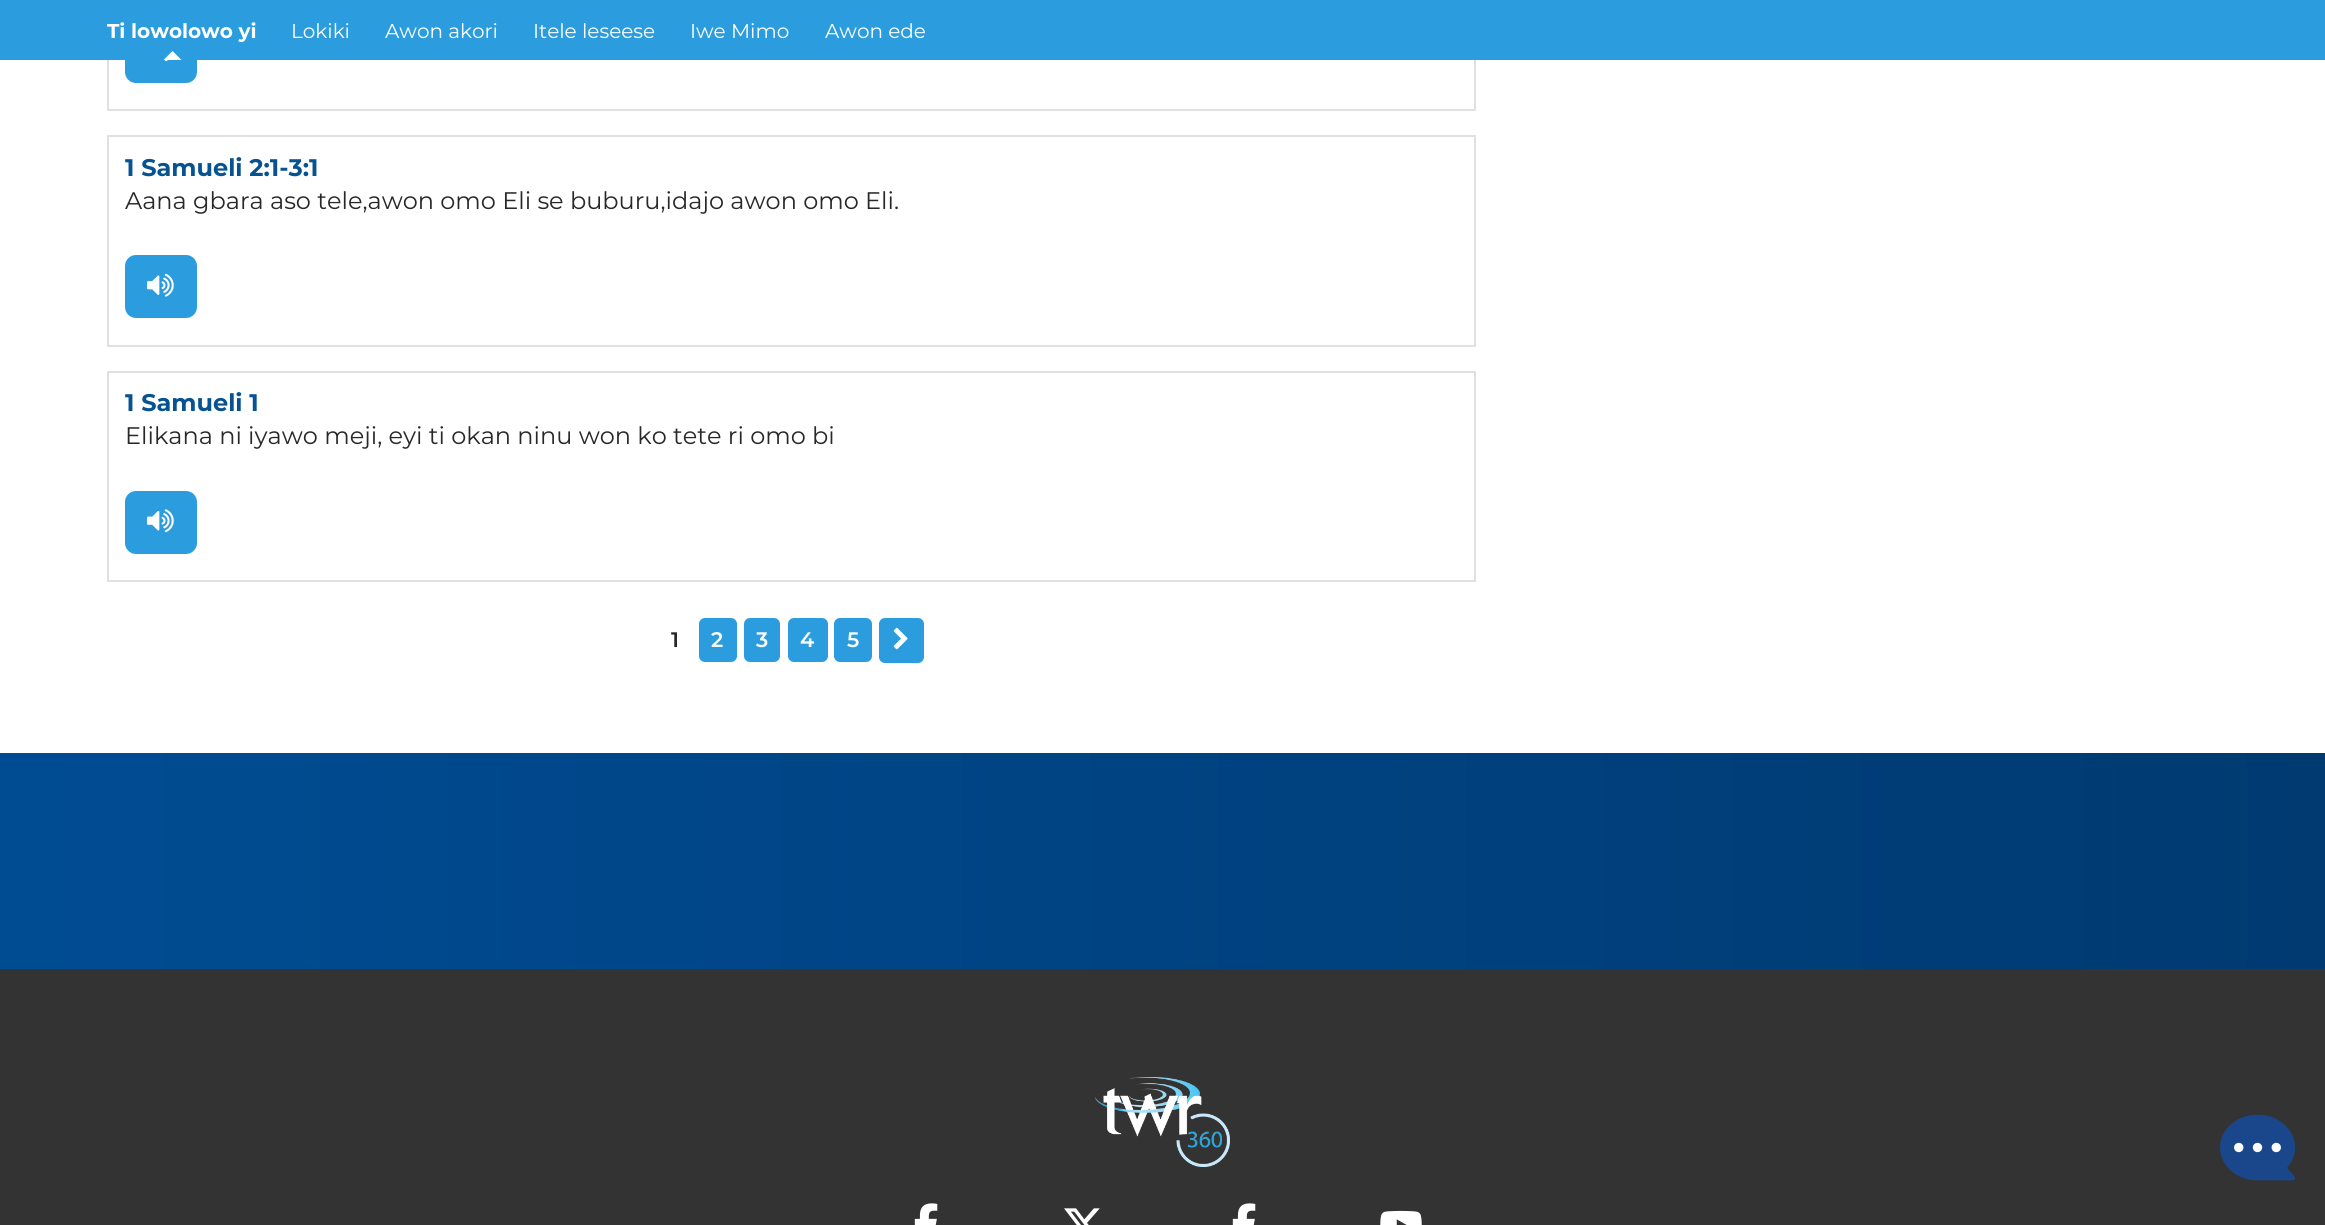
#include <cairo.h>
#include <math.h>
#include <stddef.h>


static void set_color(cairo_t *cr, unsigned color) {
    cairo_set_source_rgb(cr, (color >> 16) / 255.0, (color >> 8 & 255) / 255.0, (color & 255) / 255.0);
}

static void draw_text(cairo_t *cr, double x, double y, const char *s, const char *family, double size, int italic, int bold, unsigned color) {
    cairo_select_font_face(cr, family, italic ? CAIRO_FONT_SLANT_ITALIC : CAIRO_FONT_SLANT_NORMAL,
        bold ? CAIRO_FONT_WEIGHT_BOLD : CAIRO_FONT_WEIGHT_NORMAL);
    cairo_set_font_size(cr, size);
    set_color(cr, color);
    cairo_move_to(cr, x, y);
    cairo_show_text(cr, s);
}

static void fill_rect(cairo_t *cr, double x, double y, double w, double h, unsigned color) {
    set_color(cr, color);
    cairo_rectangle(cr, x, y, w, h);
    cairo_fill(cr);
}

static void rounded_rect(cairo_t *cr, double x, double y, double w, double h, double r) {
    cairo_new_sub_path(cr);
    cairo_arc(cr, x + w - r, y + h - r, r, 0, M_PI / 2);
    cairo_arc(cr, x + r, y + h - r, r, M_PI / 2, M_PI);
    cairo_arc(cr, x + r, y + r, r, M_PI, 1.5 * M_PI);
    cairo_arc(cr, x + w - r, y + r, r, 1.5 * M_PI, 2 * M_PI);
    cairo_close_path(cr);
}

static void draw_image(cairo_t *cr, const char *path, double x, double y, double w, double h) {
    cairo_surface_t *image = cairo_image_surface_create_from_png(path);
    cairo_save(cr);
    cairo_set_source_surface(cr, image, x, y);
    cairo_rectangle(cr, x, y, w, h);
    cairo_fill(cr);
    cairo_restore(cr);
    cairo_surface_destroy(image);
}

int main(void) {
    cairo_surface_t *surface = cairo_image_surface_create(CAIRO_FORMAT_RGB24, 2325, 1225);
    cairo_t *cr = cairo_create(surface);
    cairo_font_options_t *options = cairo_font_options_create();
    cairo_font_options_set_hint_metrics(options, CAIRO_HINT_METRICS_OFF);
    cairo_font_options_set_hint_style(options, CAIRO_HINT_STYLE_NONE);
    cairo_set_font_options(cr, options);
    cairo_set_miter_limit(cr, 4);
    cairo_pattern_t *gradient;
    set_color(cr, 0xFFFFFF);
    cairo_paint(cr);
    cairo_rectangle(cr, 108, -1, 1367, 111);
    set_color(cr, 0xE0E0E0);
    cairo_stroke(cr);
    set_color(cr, 0x2B9DDE);
    rounded_rect(cr, 125, 20, 72, 63, 11);
    cairo_fill(cr);
    fill_rect(cr, 0, 0, 2325, 60, 0x2B9DDE);
    draw_text(cr, 107, 38, "Ti lowolowo yi", "Montserrat", 20, 0, 1, 0xFFFFFF);
    cairo_new_path(cr);
    cairo_move_to(cr, 181.5, 60);
    cairo_line_to(cr, 163.5, 60);
    cairo_line_to(cr, 172.5, 51);
    cairo_close_path(cr);
    cairo_fill(cr);
    draw_text(cr, 291, 38, "Lokiki", "Montserrat", 20, 0, 0, 0xFFFFFF);
    draw_text(cr, 385, 38, "Awon akori", "Montserrat", 20, 0, 0, 0xFFFFFF);
    draw_text(cr, 533, 38, "Itele leseese", "Montserrat", 20, 0, 0, 0xFFFFFF);
    draw_text(cr, 690, 38, "Iwe Mimo", "Montserrat", 20, 0, 0, 0xFFFFFF);
    draw_text(cr, 825, 38, "Awon ede", "Montserrat", 20, 0, 0, 0xFFFFFF);
    draw_image(cr, "assets/img1.png", 164, 60, 4, 2);
    cairo_rectangle(cr, 108, 136, 1367, 210);
    set_color(cr, 0xE0E0E0);
    cairo_stroke(cr);
    draw_text(cr, 125, 176, "1 Samueli 2:1-3:1", "Montserrat", 24, 0, 1, 0x075391);
    draw_text(cr, 125, 209, "Aana gbara aso tele,awon omo Eli se buburu,idajo awon omo Eli.", "Montserrat", 24, 0, 0, 0x282828);
    set_color(cr, 0x2B9DDE);
    rounded_rect(cr, 125, 255, 72, 63, 11);
    cairo_fill(cr);
    draw_image(cr, "assets/img2.png", 147, 273, 27, 24);
    cairo_rectangle(cr, 108, 372, 1367, 209);
    set_color(cr, 0xE0E0E0);
    cairo_stroke(cr);
    draw_text(cr, 125, 411, "1 Samueli 1", "Montserrat", 24, 0, 1, 0x075391);
    draw_text(cr, 125, 444, "Elikana ni iyawo meji, eyi ti okan ninu won ko tete ri omo bi", "Montserrat", 24, 0, 0, 0x282828);
    set_color(cr, 0x2B9DDE);
    rounded_rect(cr, 125, 491, 72, 63, 11);
    cairo_fill(cr);
    draw_image(cr, "assets/img3.png", 147, 509, 27, 24);
    draw_text(cr, 671, 647, "1", "Montserrat SemiBold", 21, 0, 0, 0x282828);
    set_color(cr, 0x2B9DDE);
    rounded_rect(cr, 699, 618, 38, 44, 6);
    cairo_fill(cr);
    draw_text(cr, 711, 647, "2", "Montserrat SemiBold", 21, 0, 0, 0xFFFFFF);
    set_color(cr, 0x2B9DDE);
    rounded_rect(cr, 744, 618, 36, 44, 6);
    cairo_fill(cr);
    draw_text(cr, 756, 647, "3", "Montserrat SemiBold", 21, 0, 0, 0xFFFFFF);
    set_color(cr, 0x2B9DDE);
    rounded_rect(cr, 788, 618, 40, 44, 6);
    cairo_fill(cr);
    draw_text(cr, 800, 647, "4", "Montserrat SemiBold", 21, 0, 0, 0xFFFFFF);
    set_color(cr, 0x2B9DDE);
    rounded_rect(cr, 834, 618, 38, 44, 6);
    cairo_fill(cr);
    draw_text(cr, 847, 647, "5", "Montserrat SemiBold", 21, 0, 0, 0xFFFFFF);
    set_color(cr, 0x2B9DDE);
    rounded_rect(cr, 879, 618, 45, 45, 6);
    cairo_fill(cr);
    draw_image(cr, "assets/img4.png", 893, 627, 15, 23);
    gradient = cairo_pattern_create_linear(0, 861, 2325, 861);
    cairo_pattern_add_color_stop_rgba(gradient, 0, 0, 0.298, 0.576, 1);
    cairo_pattern_add_color_stop_rgba(gradient, 1, 0, 0.227, 0.443, 1);
    cairo_set_source(cr, gradient);
    cairo_pattern_destroy(gradient);
    cairo_rectangle(cr, 0, 753, 2325, 216);
    cairo_fill(cr);
    fill_rect(cr, 0, 969, 2325, 256, 0x333333);
    draw_image(cr, "assets/img5.png", 1095, 1077, 135, 90);
    draw_image(cr, "assets/img6.png", 914, 1203, 24, 22);
    draw_image(cr, "assets/img7.png", 1064, 1208, 36, 17);
    draw_image(cr, "assets/img8.png", 1232, 1203, 24, 22);
    draw_image(cr, "assets/img9.png", 1380, 1210, 42, 15);
    draw_image(cr, "assets/img10.png", 2220, 1114, 75, 67);
    cairo_surface_write_to_png(surface, "output.png");
    cairo_font_options_destroy(options);
    cairo_destroy(cr);
    cairo_surface_destroy(surface);
    return 0;
}
